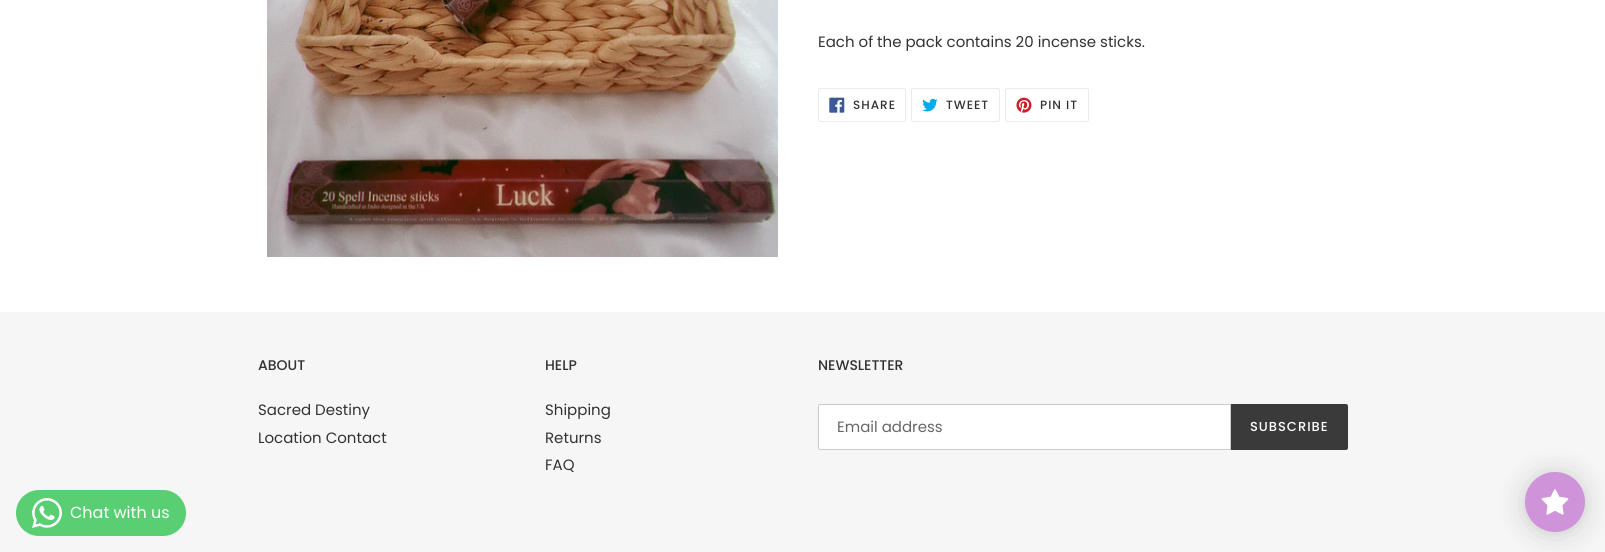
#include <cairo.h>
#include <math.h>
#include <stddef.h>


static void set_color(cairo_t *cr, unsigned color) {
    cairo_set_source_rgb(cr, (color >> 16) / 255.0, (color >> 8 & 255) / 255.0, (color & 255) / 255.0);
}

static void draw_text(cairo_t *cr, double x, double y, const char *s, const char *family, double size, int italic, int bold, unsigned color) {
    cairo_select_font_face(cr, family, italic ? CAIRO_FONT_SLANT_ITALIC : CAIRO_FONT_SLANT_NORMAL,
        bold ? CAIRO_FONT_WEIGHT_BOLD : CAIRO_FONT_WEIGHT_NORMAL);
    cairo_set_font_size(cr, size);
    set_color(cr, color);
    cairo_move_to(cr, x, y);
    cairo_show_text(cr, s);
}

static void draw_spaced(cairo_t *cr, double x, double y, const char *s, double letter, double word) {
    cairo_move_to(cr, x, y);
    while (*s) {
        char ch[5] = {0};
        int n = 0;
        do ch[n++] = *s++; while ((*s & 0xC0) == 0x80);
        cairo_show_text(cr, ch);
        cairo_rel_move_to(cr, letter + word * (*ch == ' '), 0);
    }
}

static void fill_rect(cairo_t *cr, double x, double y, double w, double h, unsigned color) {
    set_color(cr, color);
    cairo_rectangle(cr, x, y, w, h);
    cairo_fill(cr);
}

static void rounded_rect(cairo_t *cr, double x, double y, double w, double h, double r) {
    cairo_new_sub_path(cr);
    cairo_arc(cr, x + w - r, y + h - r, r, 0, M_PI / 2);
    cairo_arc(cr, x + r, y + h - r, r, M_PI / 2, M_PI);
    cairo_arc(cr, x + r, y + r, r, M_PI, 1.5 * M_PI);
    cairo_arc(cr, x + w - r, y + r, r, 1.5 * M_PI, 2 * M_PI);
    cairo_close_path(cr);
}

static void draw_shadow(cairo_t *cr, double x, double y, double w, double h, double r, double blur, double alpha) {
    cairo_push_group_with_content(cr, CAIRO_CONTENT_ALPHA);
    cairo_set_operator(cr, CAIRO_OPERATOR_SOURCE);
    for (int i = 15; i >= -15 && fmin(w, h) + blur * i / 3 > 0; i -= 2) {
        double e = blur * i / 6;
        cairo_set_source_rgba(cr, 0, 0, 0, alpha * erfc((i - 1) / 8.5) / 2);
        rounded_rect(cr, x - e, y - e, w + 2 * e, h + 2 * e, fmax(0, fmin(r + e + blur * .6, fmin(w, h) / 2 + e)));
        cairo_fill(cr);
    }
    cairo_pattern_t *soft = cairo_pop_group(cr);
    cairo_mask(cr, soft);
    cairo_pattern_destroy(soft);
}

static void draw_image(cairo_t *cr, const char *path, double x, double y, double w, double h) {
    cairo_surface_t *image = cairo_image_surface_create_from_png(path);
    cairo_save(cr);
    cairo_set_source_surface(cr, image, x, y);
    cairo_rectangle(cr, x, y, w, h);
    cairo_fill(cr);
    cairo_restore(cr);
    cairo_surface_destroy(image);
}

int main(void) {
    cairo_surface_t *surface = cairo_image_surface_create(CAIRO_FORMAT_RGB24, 1605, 552);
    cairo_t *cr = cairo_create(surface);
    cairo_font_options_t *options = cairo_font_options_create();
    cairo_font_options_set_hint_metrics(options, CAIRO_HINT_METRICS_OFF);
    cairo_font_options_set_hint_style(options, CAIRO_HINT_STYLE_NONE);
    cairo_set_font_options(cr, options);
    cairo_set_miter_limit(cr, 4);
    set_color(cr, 0xFFFFFF);
    cairo_paint(cr);
    draw_image(cr, "assets/img1.png", 267, 0, 511, 257);
    draw_text(cr, 818, 47, "Each of the pack contains 20 incense sticks.", "Poppins", 15, 0, 0, 0x333232);
    rounded_rect(cr, 818.5, 88.5, 87, 33, 1.5);
    set_color(cr, 0xEBEBEB);
    cairo_set_line_width(cr, 1);
    cairo_stroke(cr);
    draw_image(cr, "assets/img2.png", 829, 97, 16, 16);
    cairo_select_font_face(cr, "Poppins Medium", CAIRO_FONT_SLANT_NORMAL, CAIRO_FONT_WEIGHT_NORMAL);
    cairo_set_font_size(cr, 12);
    set_color(cr, 0x333232);
    draw_spaced(cr, 853, 109, "SHARE", 1, 0);
    rounded_rect(cr, 911.5, 88.5, 88, 33, 1.5);
    set_color(cr, 0xEBEBEB);
    cairo_stroke(cr);
    draw_image(cr, "assets/img3.png", 922, 98, 16, 14);
    set_color(cr, 0x333232);
    draw_spaced(cr, 946, 109, "TWEET", 1, 0);
    rounded_rect(cr, 1005.5, 88.5, 83, 33, 1.5);
    set_color(cr, 0xEBEBEB);
    cairo_stroke(cr);
    draw_image(cr, "assets/img4.png", 1016, 97, 16, 16);
    set_color(cr, 0x333232);
    draw_spaced(cr, 1040, 109, "PIN IT", 1, 0);
    fill_rect(cr, 0, 312, 1605, 240, 0xF6F6F6);
    draw_text(cr, 258, 370, "ABOUT", "Poppins Medium", 14, 0, 0, 0x333232);
    draw_text(cr, 258, 415, "Sacred Destiny", "Poppins", 15, 0, 0, 0x333232);
    draw_text(cr, 258, 443, "Location Contact", "Poppins", 15, 0, 0, 0x333232);
    draw_text(cr, 545, 370, "HELP", "Poppins Medium", 14, 0, 0, 0x333232);
    draw_text(cr, 545, 415, "Shipping", "Poppins", 15, 0, 0, 0x333232);
    draw_text(cr, 545, 443, "Returns", "Poppins", 15, 0, 0, 0x333232);
    draw_text(cr, 545, 470, "FAQ", "Poppins", 15, 0, 0, 0x333232);
    draw_text(cr, 818, 370, "NEWSLETTER", "Poppins Medium", 14, 0, 0, 0x333232);
    set_color(cr, 0xFFFFFF);
    cairo_new_path(cr);
    cairo_move_to(cr, 820, 404.5);
    cairo_line_to(cr, 1230.5, 404.5);
    cairo_line_to(cr, 1230.5, 449.5);
    cairo_line_to(cr, 820, 449.5);
    cairo_curve_to(cr, 819, 449.5, 818.5, 449, 818.5, 448);
    cairo_line_to(cr, 818.5, 406);
    cairo_curve_to(cr, 818.5, 405, 819, 404.5, 820, 404.5);
    cairo_close_path(cr);
    cairo_fill_preserve(cr);
    set_color(cr, 0xCCCCCC);
    cairo_stroke(cr);
    draw_text(cr, 837, 432, "Email address", "Poppins", 15, 0, 0, 0x666666);
    set_color(cr, 0x3A3A3A);
    cairo_new_path(cr);
    cairo_move_to(cr, 1231, 404);
    cairo_line_to(cr, 1346, 404);
    cairo_curve_to(cr, 1347, 404, 1348, 405, 1348, 406);
    cairo_line_to(cr, 1348, 448);
    cairo_curve_to(cr, 1348, 449, 1347, 450, 1346, 450);
    cairo_line_to(cr, 1231, 450);
    cairo_close_path(cr);
    cairo_fill(cr);
    cairo_select_font_face(cr, "Poppins Medium", CAIRO_FONT_SLANT_NORMAL, CAIRO_FONT_WEIGHT_NORMAL);
    cairo_set_font_size(cr, 13);
    set_color(cr, 0xFFFFFF);
    draw_spaced(cr, 1250, 431, "SUBSCRIBE", 1, 0);
    set_color(cr, 0x59CE72);
    rounded_rect(cr, 16, 490, 170, 46, 23);
    cairo_fill(cr);
    draw_image(cr, "assets/img5.png", 32, 498, 30, 30);
    draw_text(cr, 70, 518, "Chat with us", "Poppins", 16, 0, 0, 0xFFFFFF);
    set_color(cr, 0x000000);
    draw_shadow(cr, 1525, 474, 60, 60, 30, 15, 0.15);
    draw_shadow(cr, 1525, 473, 60, 60, 30, 3, 0.05);
    set_color(cr, 0xCE93D8);
    cairo_arc(cr, 1555, 502, 30, 0, 2 * M_PI);
    cairo_fill(cr);
    draw_image(cr, "assets/img6.png", 1541, 489, 28, 26);
    cairo_surface_write_to_png(surface, "output.png");
    cairo_font_options_destroy(options);
    cairo_destroy(cr);
    cairo_surface_destroy(surface);
    return 0;
}
